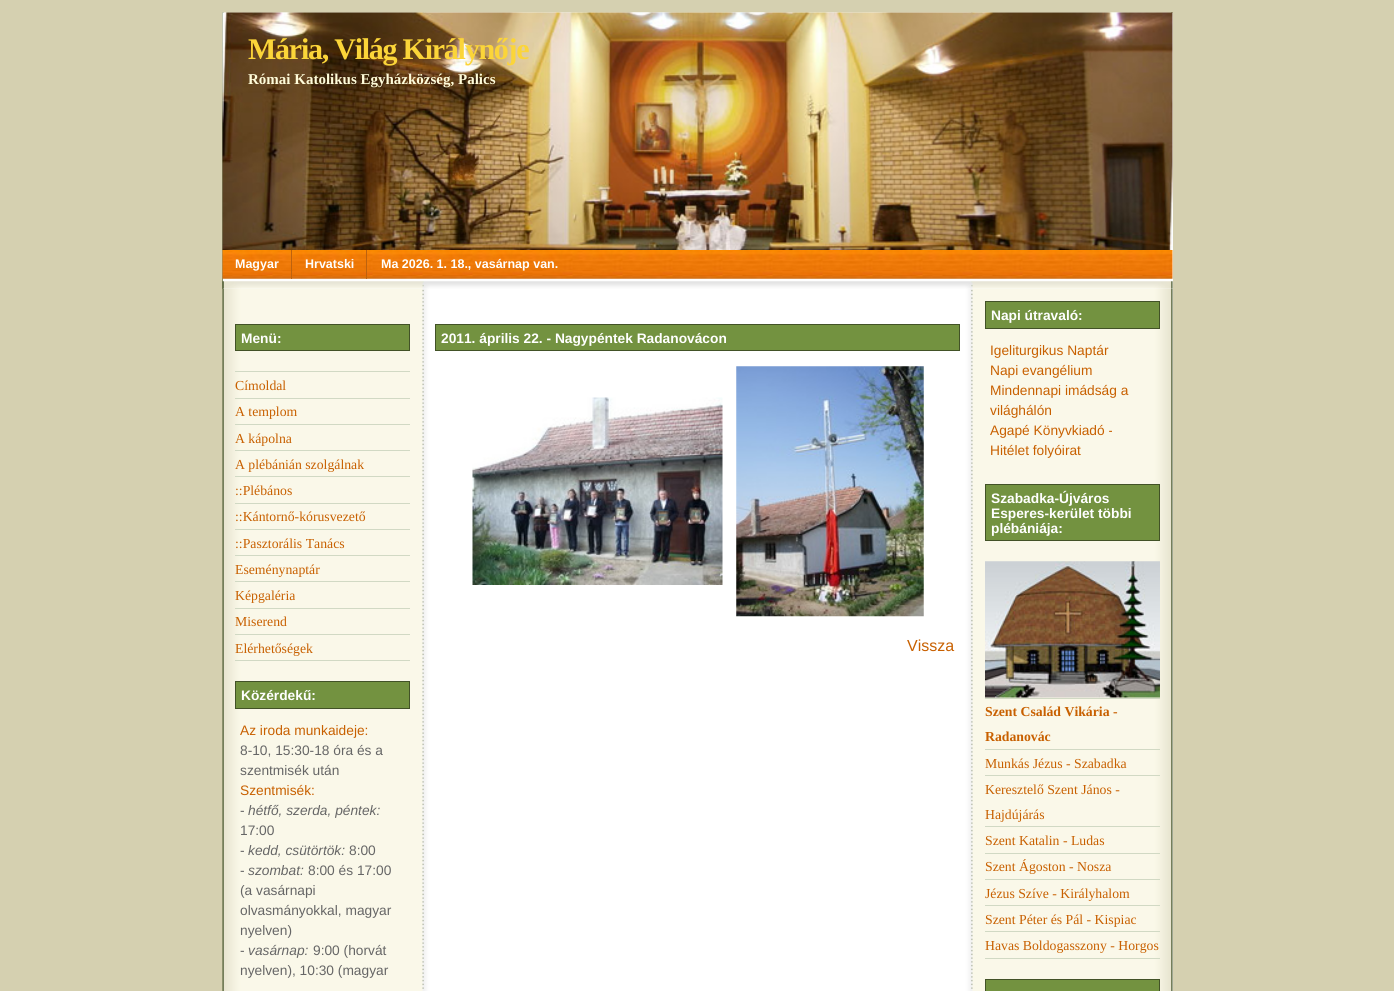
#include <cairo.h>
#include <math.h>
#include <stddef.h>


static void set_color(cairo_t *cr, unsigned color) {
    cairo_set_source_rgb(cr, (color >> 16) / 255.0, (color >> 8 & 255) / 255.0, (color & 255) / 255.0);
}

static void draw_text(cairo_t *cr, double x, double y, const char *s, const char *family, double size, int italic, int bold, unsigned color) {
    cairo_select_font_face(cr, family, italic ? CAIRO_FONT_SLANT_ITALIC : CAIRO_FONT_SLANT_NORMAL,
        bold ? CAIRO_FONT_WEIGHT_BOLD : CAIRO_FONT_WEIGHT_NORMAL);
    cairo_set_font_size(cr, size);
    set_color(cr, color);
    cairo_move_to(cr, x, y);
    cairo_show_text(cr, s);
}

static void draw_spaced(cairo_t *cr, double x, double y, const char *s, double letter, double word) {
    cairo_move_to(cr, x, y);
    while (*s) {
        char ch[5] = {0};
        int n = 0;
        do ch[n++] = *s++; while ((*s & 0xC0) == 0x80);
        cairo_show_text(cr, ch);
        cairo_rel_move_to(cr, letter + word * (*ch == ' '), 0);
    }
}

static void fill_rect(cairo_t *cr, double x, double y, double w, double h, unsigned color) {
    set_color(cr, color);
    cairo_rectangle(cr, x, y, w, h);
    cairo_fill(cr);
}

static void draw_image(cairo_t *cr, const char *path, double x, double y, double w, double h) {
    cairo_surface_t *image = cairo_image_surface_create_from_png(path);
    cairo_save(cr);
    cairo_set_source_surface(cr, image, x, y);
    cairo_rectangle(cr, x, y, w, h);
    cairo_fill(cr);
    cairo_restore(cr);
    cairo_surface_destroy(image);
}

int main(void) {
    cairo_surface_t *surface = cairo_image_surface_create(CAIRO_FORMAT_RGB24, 1394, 991);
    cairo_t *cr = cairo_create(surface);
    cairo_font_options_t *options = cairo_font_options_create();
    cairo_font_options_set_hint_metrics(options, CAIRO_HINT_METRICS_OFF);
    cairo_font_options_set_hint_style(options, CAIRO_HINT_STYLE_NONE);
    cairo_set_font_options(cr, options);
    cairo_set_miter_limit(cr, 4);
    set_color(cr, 0xD5D0B0);
    cairo_paint(cr);
    fill_rect(cr, 1172, 289, 1, 702, 0xFFFFFF);
    draw_image(cr, "assets/img1.png", 222, 12, 951, 979);
    fill_rect(cr, 1172, 13, 1, 237, 0xFFFFFF);
    draw_image(cr, "assets/img2.png", 222, 12, 951, 238);
    cairo_select_font_face(cr, "Liberation Serif", CAIRO_FONT_SLANT_NORMAL, CAIRO_FONT_WEIGHT_BOLD);
    cairo_set_font_size(cr, 30);
    set_color(cr, 0xFBD539);
    draw_spaced(cr, 248, 59, "Mária, Világ Királynője", -1.25, 0);
    draw_text(cr, 248, 84, "Római Katolikus Egyházközség, Palics", "Liberation Serif", 15, 0, 1, 0xFFFCDA);
    fill_rect(cr, 223, 250, 950, 39, 0xFFFFFF);
    draw_image(cr, "assets/img3.png", 222, 281, 951, 8);
    draw_image(cr, "assets/img4.png", 222, 250, 951, 29);
    fill_rect(cr, 291, 250, 1, 29, 0xBD620E);
    draw_text(cr, 235, 268, "Magyar", "Liberation Sans", 12.5, 0, 1, 0xFFFFFF);
    fill_rect(cr, 366, 250, 1, 29, 0xBD620E);
    draw_text(cr, 305, 268, "Hrvatski", "Liberation Sans", 12.5, 0, 1, 0xFFFFFF);
    draw_text(cr, 381, 268, "Ma 2026. 1. 18., vasárnap van.", "Liberation Sans", 12.5, 0, 1, 0xFFFFFF);
    set_color(cr, 0x739240);
    cairo_rectangle(cr, 235.5, 324.5, 174, 26);
    cairo_fill_preserve(cr);
    set_color(cr, 0x425227);
    cairo_set_line_width(cr, 1);
    cairo_stroke(cr);
    draw_text(cr, 241, 343, "Menü:", "Liberation Sans", 13.75, 0, 1, 0xFFFFFF);
    fill_rect(cr, 235, 660, 175, 1, 0xD1D9C4);
    fill_rect(cr, 235, 371, 175, 1, 0xD1D9C4);
    draw_text(cr, 235, 390, "Címoldal", "Liberation Serif", 13.75, 0, 0, 0xC86000);
    fill_rect(cr, 235, 398, 175, 1, 0xD1D9C4);
    draw_text(cr, 235, 416, "A templom", "Liberation Serif", 13.75, 0, 0, 0xC86000);
    fill_rect(cr, 235, 424, 175, 1, 0xD1D9C4);
    draw_text(cr, 235, 443, "A kápolna", "Liberation Serif", 13.75, 0, 0, 0xC86000);
    fill_rect(cr, 235, 450, 175, 1, 0xD1D9C4);
    draw_text(cr, 235, 469, "A plébánián szolgálnak", "Liberation Serif", 13.75, 0, 0, 0xC86000);
    fill_rect(cr, 235, 476, 175, 1, 0xD1D9C4);
    draw_text(cr, 235, 495, "::Plébános", "Liberation Serif", 13.75, 0, 0, 0xC86000);
    fill_rect(cr, 235, 503, 175, 1, 0xD1D9C4);
    draw_text(cr, 235, 521, "::Kántornő-kórusvezető", "Liberation Serif", 13.75, 0, 0, 0xC86000);
    fill_rect(cr, 235, 529, 175, 1, 0xD1D9C4);
    draw_text(cr, 235, 548, "::Pasztorális Tanács", "Liberation Serif", 13.75, 0, 0, 0xC86000);
    fill_rect(cr, 235, 555, 175, 1, 0xD1D9C4);
    draw_text(cr, 235, 574, "Eseménynaptár", "Liberation Serif", 13.75, 0, 0, 0xC86000);
    fill_rect(cr, 235, 581, 175, 1, 0xD1D9C4);
    draw_text(cr, 235, 600, "Képgaléria", "Liberation Serif", 13.75, 0, 0, 0xC86000);
    fill_rect(cr, 235, 608, 175, 1, 0xD1D9C4);
    draw_text(cr, 235, 626, "Miserend", "Liberation Serif", 13.75, 0, 0, 0xC86000);
    fill_rect(cr, 235, 634, 175, 1, 0xD1D9C4);
    draw_text(cr, 235, 653, "Elérhetőségek", "Liberation Serif", 13.75, 0, 0, 0xC86000);
    set_color(cr, 0x739240);
    cairo_rectangle(cr, 235.5, 681.5, 174, 27);
    cairo_fill_preserve(cr);
    set_color(cr, 0x425227);
    cairo_stroke(cr);
    draw_text(cr, 241, 700, "Közérdekű:", "Liberation Sans", 13.75, 0, 1, 0xFFFFFF);
    draw_text(cr, 240, 735, "Az iroda munkaideje:", "Liberation Sans", 13.75, 0, 0, 0xC86000);
    draw_text(cr, 240, 755, "8-10, 15:30-18 óra és a", "Liberation Sans", 13.75, 0, 0, 0x666666);
    draw_text(cr, 240, 775, "szentmisék után", "Liberation Sans", 13.75, 0, 0, 0x666666);
    draw_text(cr, 240, 795, "Szentmisék:", "Liberation Sans", 13.75, 0, 0, 0xC86000);
    draw_text(cr, 240, 815, "-", "Liberation Sans", 13.75, 0, 0, 0x666666);
    draw_text(cr, 248, 815, "hétfő, szerda, péntek:", "Liberation Sans", 13.75, 1, 0, 0x666666);
    draw_text(cr, 240, 835, "17:00", "Liberation Sans", 13.75, 0, 0, 0x666666);
    draw_text(cr, 240, 855, "-", "Liberation Sans", 13.75, 0, 0, 0x666666);
    draw_text(cr, 248, 855, "kedd, csütörtök:", "Liberation Sans", 13.75, 1, 0, 0x666666);
    draw_text(cr, 349, 855, "8:00", "Liberation Sans", 13.75, 0, 0, 0x666666);
    draw_text(cr, 240, 875, "-", "Liberation Sans", 13.75, 0, 0, 0x666666);
    draw_text(cr, 248, 875, "szombat:", "Liberation Sans", 13.75, 1, 0, 0x666666);
    draw_text(cr, 308, 875, "8:00 és 17:00", "Liberation Sans", 13.75, 0, 0, 0x666666);
    draw_text(cr, 240, 895, "(a vasárnapi", "Liberation Sans", 13.75, 0, 0, 0x666666);
    draw_text(cr, 240, 915, "olvasmányokkal, magyar", "Liberation Sans", 13.75, 0, 0, 0x666666);
    draw_text(cr, 240, 935, "nyelven)", "Liberation Sans", 13.75, 0, 0, 0x666666);
    draw_text(cr, 240, 955, "-", "Liberation Sans", 13.75, 0, 0, 0x666666);
    draw_text(cr, 248, 955, "vasárnap:", "Liberation Sans", 13.75, 1, 0, 0x666666);
    draw_text(cr, 313, 955, "9:00 (horvát", "Liberation Sans", 13.75, 0, 0, 0x666666);
    draw_text(cr, 240, 975, "nyelven), 10:30 (magyar", "Liberation Sans", 13.75, 0, 0, 0x666666);
    set_color(cr, 0x739240);
    cairo_rectangle(cr, 435.5, 324.5, 524, 26);
    cairo_fill_preserve(cr);
    set_color(cr, 0x425227);
    cairo_stroke(cr);
    draw_text(cr, 441, 343, "2011. április 22. - Nagypéntek Radanovácon", "Liberation Sans", 13.75, 0, 1, 0xFFFFFF);
    draw_image(cr, "assets/img5.png", 472, 397, 251, 188);
    draw_image(cr, "assets/img6.png", 736, 366, 188, 251);
    draw_text(cr, 907, 651, "Vissza", "Liberation Sans", 16, 0, 0, 0xC86000);
    set_color(cr, 0x739240);
    cairo_rectangle(cr, 985.5, 301.5, 174, 27);
    cairo_fill_preserve(cr);
    set_color(cr, 0x425227);
    cairo_stroke(cr);
    draw_text(cr, 991, 320, "Napi útravaló:", "Liberation Sans", 13.75, 0, 1, 0xFFFFFF);
    draw_text(cr, 990, 355, "Igeliturgikus Naptár", "Liberation Sans", 13.75, 0, 0, 0xC86000);
    draw_text(cr, 990, 375, "Napi evangélium", "Liberation Sans", 13.75, 0, 0, 0xC86000);
    draw_text(cr, 990, 395, "Mindennapi imádság a", "Liberation Sans", 13.75, 0, 0, 0xC86000);
    draw_text(cr, 990, 415, "világhálón", "Liberation Sans", 13.75, 0, 0, 0xC86000);
    draw_text(cr, 990, 435, "Agapé Könyvkiadó -", "Liberation Sans", 13.75, 0, 0, 0xC86000);
    draw_text(cr, 990, 455, "Hitélet folyóirat", "Liberation Sans", 13.75, 0, 0, 0xC86000);
    set_color(cr, 0x739240);
    cairo_rectangle(cr, 985.5, 484.5, 174, 56);
    cairo_fill_preserve(cr);
    set_color(cr, 0x425227);
    cairo_stroke(cr);
    draw_text(cr, 991, 503, "Szabadka-Újváros", "Liberation Sans", 13.75, 0, 1, 0xFFFFFF);
    draw_text(cr, 991, 518, "Esperes-kerület többi", "Liberation Sans", 13.75, 0, 1, 0xFFFFFF);
    draw_text(cr, 991, 533, "plébániája:", "Liberation Sans", 13.75, 0, 1, 0xFFFFFF);
    fill_rect(cr, 985, 958, 175, 1, 0xD1D9C4);
    draw_image(cr, "assets/img7.png", 985, 561, 175, 137);
    fill_rect(cr, 985, 698, 175, 1, 0xD1D9C4);
    draw_text(cr, 985, 716, "Szent Család Vikária -", "Liberation Serif", 13.75, 0, 1, 0xC86000);
    draw_text(cr, 985, 741, "Radanovác", "Liberation Serif", 13.75, 0, 1, 0xC86000);
    fill_rect(cr, 985, 749, 175, 1, 0xD1D9C4);
    draw_text(cr, 985, 768, "Munkás Jézus - Szabadka", "Liberation Serif", 13.75, 0, 0, 0xC86000);
    fill_rect(cr, 985, 775, 175, 1, 0xD1D9C4);
    draw_text(cr, 985, 794, "Keresztelő Szent János -", "Liberation Serif", 13.75, 0, 0, 0xC86000);
    draw_text(cr, 985, 819, "Hajdújárás", "Liberation Serif", 13.75, 0, 0, 0xC86000);
    fill_rect(cr, 985, 826, 175, 1, 0xD1D9C4);
    draw_text(cr, 985, 845, "Szent Katalin - Ludas", "Liberation Serif", 13.75, 0, 0, 0xC86000);
    fill_rect(cr, 985, 853, 175, 1, 0xD1D9C4);
    draw_text(cr, 985, 871, "Szent Ágoston - Nosza", "Liberation Serif", 13.75, 0, 0, 0xC86000);
    fill_rect(cr, 985, 879, 175, 1, 0xD1D9C4);
    draw_text(cr, 985, 898, "Jézus Szíve - Királyhalom", "Liberation Serif", 13.75, 0, 0, 0xC86000);
    fill_rect(cr, 985, 905, 175, 1, 0xD1D9C4);
    draw_text(cr, 985, 924, "Szent Péter és Pál - Kispiac", "Liberation Serif", 13.75, 0, 0, 0xC86000);
    fill_rect(cr, 985, 931, 175, 1, 0xD1D9C4);
    draw_text(cr, 985, 950, "Havas Boldogasszony - Horgos", "Liberation Serif", 13.75, 0, 0, 0xC86000);
    set_color(cr, 0x739240);
    cairo_rectangle(cr, 985.5, 979.5, 174, 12);
    cairo_fill_preserve(cr);
    set_color(cr, 0x425227);
    cairo_stroke(cr);
    cairo_surface_write_to_png(surface, "output.png");
    cairo_font_options_destroy(options);
    cairo_destroy(cr);
    cairo_surface_destroy(surface);
    return 0;
}
